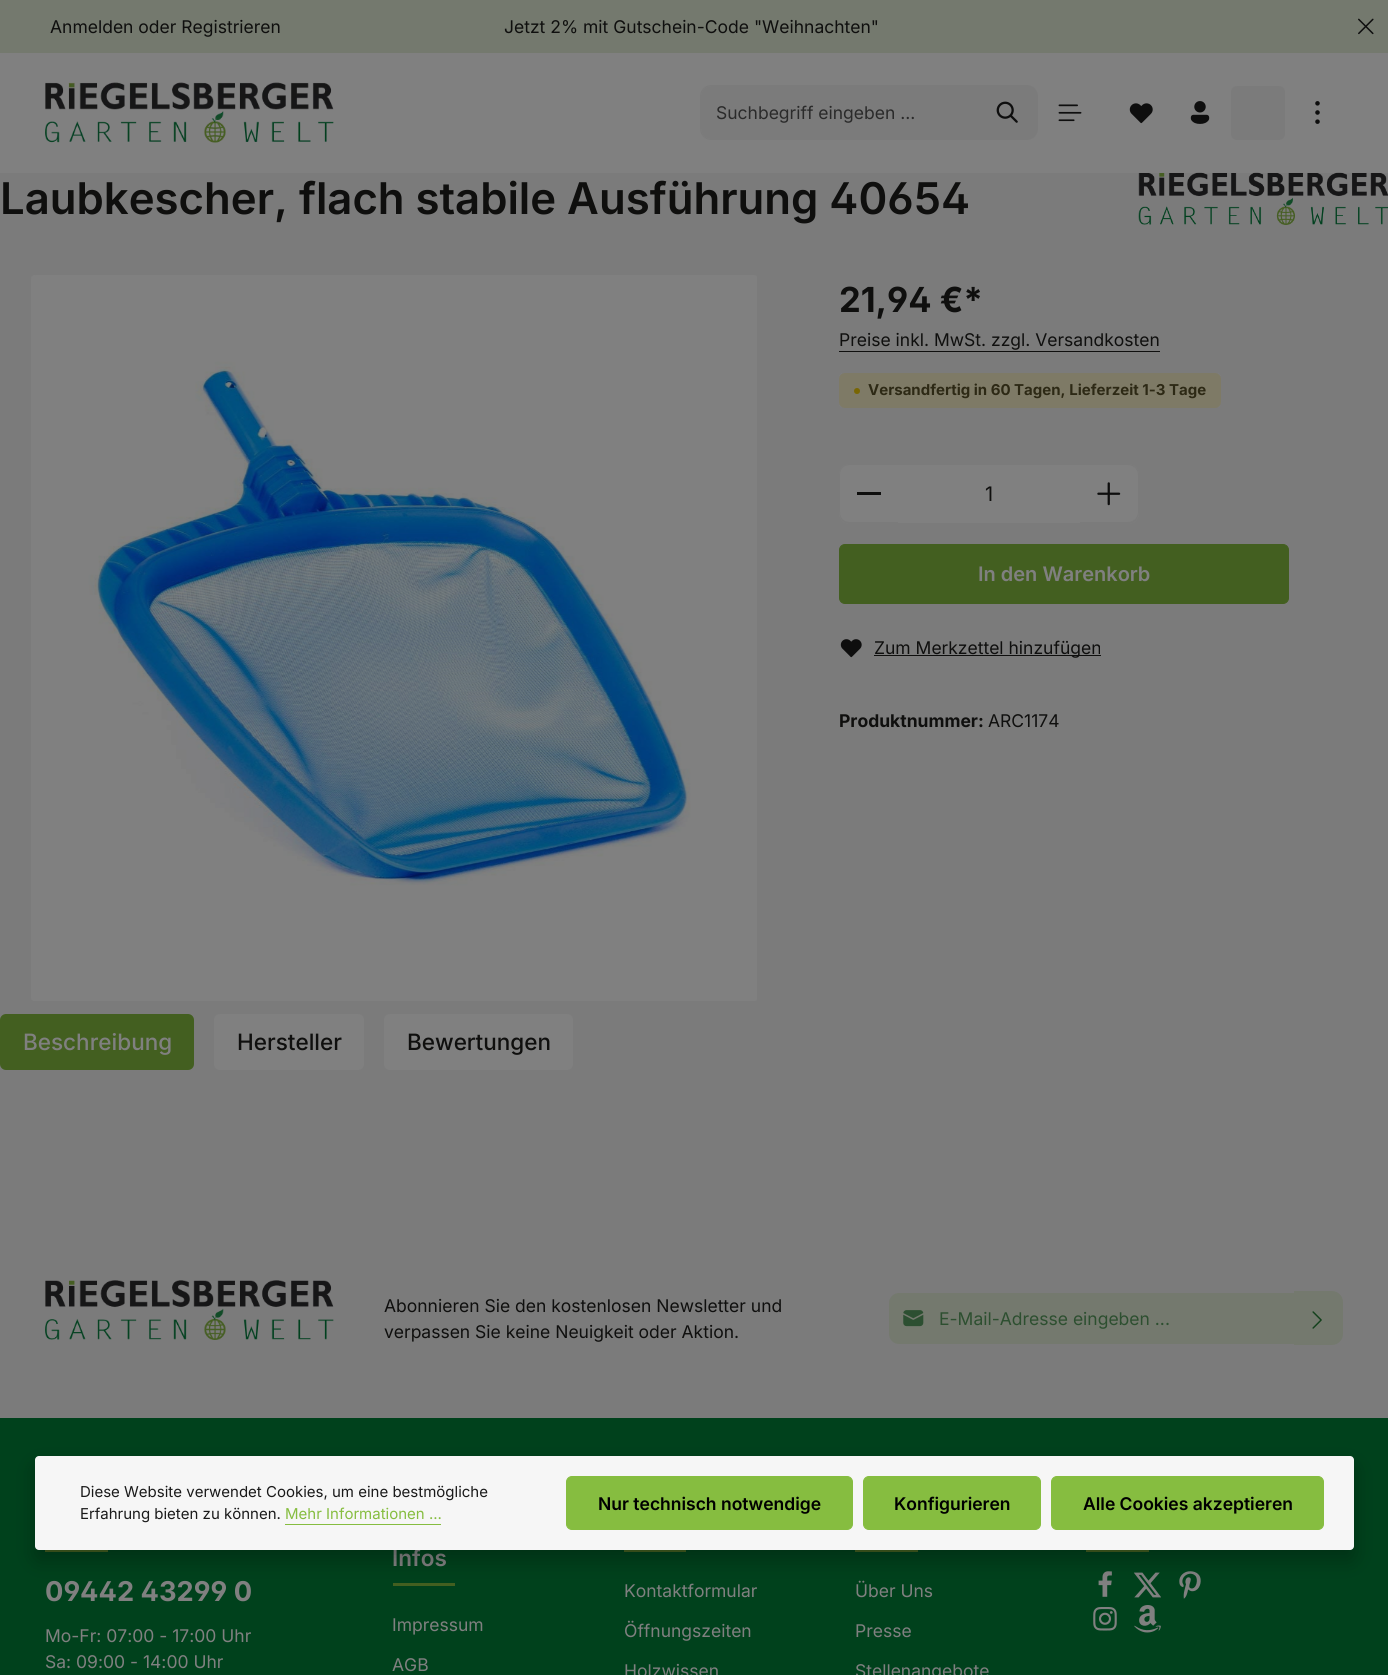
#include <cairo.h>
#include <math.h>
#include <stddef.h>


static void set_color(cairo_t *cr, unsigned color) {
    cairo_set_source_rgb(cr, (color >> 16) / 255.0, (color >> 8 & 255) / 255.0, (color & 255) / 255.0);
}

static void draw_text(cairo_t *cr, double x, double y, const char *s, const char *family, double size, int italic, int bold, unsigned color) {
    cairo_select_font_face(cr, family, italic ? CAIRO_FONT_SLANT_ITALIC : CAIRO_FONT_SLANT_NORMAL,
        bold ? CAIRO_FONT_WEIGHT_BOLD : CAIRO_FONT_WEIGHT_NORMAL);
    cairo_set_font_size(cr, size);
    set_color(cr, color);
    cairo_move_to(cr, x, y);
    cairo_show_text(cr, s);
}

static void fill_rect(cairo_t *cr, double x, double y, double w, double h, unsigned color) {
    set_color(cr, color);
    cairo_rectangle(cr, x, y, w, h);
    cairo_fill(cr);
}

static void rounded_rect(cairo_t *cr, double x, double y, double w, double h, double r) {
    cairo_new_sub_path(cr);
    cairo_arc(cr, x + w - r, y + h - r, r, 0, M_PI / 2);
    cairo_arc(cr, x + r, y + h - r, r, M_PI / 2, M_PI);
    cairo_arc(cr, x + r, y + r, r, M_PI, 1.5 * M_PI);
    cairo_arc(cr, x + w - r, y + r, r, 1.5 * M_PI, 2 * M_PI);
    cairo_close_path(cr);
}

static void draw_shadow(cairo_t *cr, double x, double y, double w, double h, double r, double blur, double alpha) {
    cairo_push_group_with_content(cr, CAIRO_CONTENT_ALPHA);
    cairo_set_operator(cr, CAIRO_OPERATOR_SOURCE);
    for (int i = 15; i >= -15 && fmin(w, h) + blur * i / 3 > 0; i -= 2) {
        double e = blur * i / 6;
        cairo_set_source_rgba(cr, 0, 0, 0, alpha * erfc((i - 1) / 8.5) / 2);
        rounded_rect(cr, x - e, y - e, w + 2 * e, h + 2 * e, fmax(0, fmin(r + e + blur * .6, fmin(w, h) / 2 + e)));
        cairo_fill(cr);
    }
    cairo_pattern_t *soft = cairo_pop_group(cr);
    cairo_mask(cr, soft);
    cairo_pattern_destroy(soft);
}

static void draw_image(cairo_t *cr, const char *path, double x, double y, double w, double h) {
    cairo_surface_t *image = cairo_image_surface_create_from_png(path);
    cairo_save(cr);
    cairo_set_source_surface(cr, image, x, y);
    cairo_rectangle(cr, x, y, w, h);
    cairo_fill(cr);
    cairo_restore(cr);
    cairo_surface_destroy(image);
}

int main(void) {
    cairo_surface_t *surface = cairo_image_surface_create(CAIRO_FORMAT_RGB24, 1388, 1675);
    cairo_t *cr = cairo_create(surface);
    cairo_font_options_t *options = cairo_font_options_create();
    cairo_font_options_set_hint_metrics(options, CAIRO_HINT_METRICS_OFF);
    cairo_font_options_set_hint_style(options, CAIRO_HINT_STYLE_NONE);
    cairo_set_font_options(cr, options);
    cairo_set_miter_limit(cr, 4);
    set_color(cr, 0x7B7B7B);
    cairo_paint(cr);
    fill_rect(cr, 0, 0, 1388, 53, 0x74796E);
    draw_text(cr, 50, 33, "Anmelden oder Registrieren", "Inter", 17.5, 0, 0, 0x0F0F0E);
    draw_text(cr, 504, 33, "Jetzt 2% mit Gutschein-Code \"Weihnachten\"", "Inter", 17.5, 0, 0, 0x0F0F0E);
    draw_image(cr, "assets/img1.png", 1358, 18, 16, 17);
    fill_rect(cr, 0, 53, 1388, 120, 0x808080);
    draw_image(cr, "assets/img2.png", 45, 82, 289, 61);
    set_color(cr, 0x7B7B7B);
    cairo_new_path(cr);
    cairo_move_to(cr, 711, 86);
    cairo_line_to(cr, 980, 86);
    cairo_line_to(cr, 980, 139);
    cairo_line_to(cr, 711, 139);
    cairo_curve_to(cr, 705.5, 139, 701, 134.5, 701, 129);
    cairo_line_to(cr, 701, 96);
    cairo_curve_to(cr, 701, 90.5, 705.5, 86, 711, 86);
    cairo_close_path(cr);
    cairo_fill(cr);
    cairo_set_fill_rule(cr, CAIRO_FILL_RULE_EVEN_ODD);
    cairo_new_path(cr);
    cairo_move_to(cr, 711, 85);
    cairo_line_to(cr, 980, 85);
    cairo_line_to(cr, 980, 140);
    cairo_line_to(cr, 711, 140);
    cairo_curve_to(cr, 705, 140, 700, 135, 700, 129);
    cairo_line_to(cr, 700, 96);
    cairo_curve_to(cr, 700, 90, 705, 85, 711, 85);
    cairo_close_path(cr);
    cairo_move_to(cr, 711, 86);
    cairo_line_to(cr, 980, 86);
    cairo_line_to(cr, 980, 139);
    cairo_line_to(cr, 711, 139);
    cairo_curve_to(cr, 706, 139, 701, 134, 701, 129);
    cairo_line_to(cr, 701, 96);
    cairo_curve_to(cr, 701, 91, 706, 86, 711, 86);
    cairo_close_path(cr);
    cairo_fill(cr);
    draw_text(cr, 716, 119, "Suchbegriff eingeben ...", "Inter", 17.5, 0, 0, 0x2A2A2A);
    set_color(cr, 0x7B7B7B);
    cairo_new_path(cr);
    cairo_move_to(cr, 979, 85);
    cairo_line_to(cr, 1027, 85);
    cairo_curve_to(cr, 1033, 85, 1038, 90, 1038, 96);
    cairo_line_to(cr, 1038, 129);
    cairo_curve_to(cr, 1038, 135, 1033, 140, 1027, 140);
    cairo_line_to(cr, 979, 140);
    cairo_close_path(cr);
    cairo_fill(cr);
    draw_image(cr, "assets/img3.png", 996, 101, 22, 22);
    draw_image(cr, "assets/img4.png", 1058, 104, 24, 18);
    draw_image(cr, "assets/img5.png", 1129, 103, 24, 21);
    draw_image(cr, "assets/img6.png", 1190, 101, 20, 23);
    rounded_rect(cr, 1231, 86, 54, 54, 6);
    cairo_fill(cr);
    draw_image(cr, "assets/img7.png", 1315, 101, 5, 23);
    draw_text(cr, 0, 214, "Laubkescher, flach stabile Ausführung 40654", "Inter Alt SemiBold", 43.7, 0, 0, 0x0F0F0E);
    draw_image(cr, "assets/img8.png", 1138, 172, 250, 53);
    draw_image(cr, "assets/img9.png", 31, 275, 726, 726);
    draw_text(cr, 839, 312, "21,94 €*", "Inter Alt", 34.5, 0, 1, 0x0F0F0E);
    draw_text(cr, 839, 346, "Preise inkl. MwSt. zzgl. Versandkosten", "Inter", 17.5, 0, 0, 0x0F0F0E);
    fill_rect(cr, 839, 351, 321, 1, 0x0F0F0E);
    set_color(cr, 0x808080);
    rounded_rect(cr, 839, 373, 382, 35, 6);
    cairo_fill(cr);
    draw_text(cr, 868, 395, "Versandfertig in 60 Tagen, Lieferzeit 1-3 Tage", "Inter", 15, 0, 1, 0x1A1A1A);
    cairo_set_source_rgba(cr, 0.475, 0.4, 0.012, 0.2);
    rounded_rect(cr, 839, 373, 382, 35, 6);
    cairo_fill(cr);
    set_color(cr, 0x796603);
    cairo_arc(cr, 857, 391, 3, 0, 2 * M_PI);
    cairo_fill(cr);
    set_color(cr, 0x808080);
    cairo_new_path(cr);
    cairo_move_to(cr, 850, 464);
    cairo_line_to(cr, 898, 464);
    cairo_line_to(cr, 898, 524);
    cairo_line_to(cr, 850, 524);
    cairo_curve_to(cr, 844, 524, 839, 519, 839, 513);
    cairo_line_to(cr, 839, 475);
    cairo_curve_to(cr, 839, 469, 844, 464, 850, 464);
    cairo_close_path(cr);
    cairo_fill(cr);
    set_color(cr, 0x7B7B7B);
    cairo_new_path(cr);
    cairo_move_to(cr, 850, 464);
    cairo_line_to(cr, 898, 464);
    cairo_line_to(cr, 898, 524);
    cairo_line_to(cr, 850, 524);
    cairo_curve_to(cr, 844, 524, 839, 519, 839, 512);
    cairo_line_to(cr, 839, 475);
    cairo_curve_to(cr, 839, 469, 844, 464, 850, 464);
    cairo_close_path(cr);
    cairo_move_to(cr, 850, 465);
    cairo_line_to(cr, 898, 465);
    cairo_line_to(cr, 898, 522);
    cairo_line_to(cr, 850, 522);
    cairo_curve_to(cr, 844, 522, 840, 518, 840, 512);
    cairo_line_to(cr, 840, 475);
    cairo_curve_to(cr, 840, 469, 844, 465, 850, 465);
    cairo_close_path(cr);
    cairo_fill(cr);
    fill_rect(cr, 857, 492, 24, 3, 0x0F0F0E);
    fill_rect(cr, 898, 465, 182, 58, 0x808080);
    draw_text(cr, 985, 501, "1", "Inter", 20, 0, 0, 0x0F0F0E);
    set_color(cr, 0x808080);
    cairo_new_path(cr);
    cairo_move_to(cr, 1080, 464);
    cairo_line_to(cr, 1128, 464);
    cairo_curve_to(cr, 1134, 464, 1139, 469, 1139, 475);
    cairo_line_to(cr, 1139, 513);
    cairo_curve_to(cr, 1139, 519, 1134, 524, 1128, 524);
    cairo_line_to(cr, 1080, 524);
    cairo_close_path(cr);
    cairo_fill(cr);
    set_color(cr, 0x7B7B7B);
    cairo_new_path(cr);
    cairo_move_to(cr, 1080, 464);
    cairo_line_to(cr, 1128, 464);
    cairo_curve_to(cr, 1134, 464, 1139, 469, 1139, 475);
    cairo_line_to(cr, 1139, 512);
    cairo_curve_to(cr, 1139, 519, 1134, 524, 1128, 524);
    cairo_line_to(cr, 1080, 524);
    cairo_close_path(cr);
    cairo_move_to(cr, 1080, 465);
    cairo_line_to(cr, 1128, 465);
    cairo_curve_to(cr, 1133, 465, 1138, 469, 1138, 475);
    cairo_line_to(cr, 1138, 512);
    cairo_curve_to(cr, 1138, 518, 1133, 522, 1128, 522);
    cairo_line_to(cr, 1080, 522);
    cairo_close_path(cr);
    cairo_fill(cr);
    draw_image(cr, "assets/img10.png", 1097, 482, 24, 24);
    set_color(cr, 0x435F20);
    rounded_rect(cr, 839.5, 544.5, 449, 59, 5.5);
    cairo_fill_preserve(cr);
    cairo_set_line_width(cr, 1);
    cairo_stroke(cr);
    draw_text(cr, 978, 581, "In den Warenkorb", "Inter SemiBold", 20, 0, 0, 0x808080);
    draw_image(cr, "assets/img11.png", 840, 639, 22, 19);
    fill_rect(cr, 874, 655, 227, 1, 0x0F0F0E);
    draw_text(cr, 874, 654, "Zum Merkzettel hinzufügen", "Inter", 17.5, 0, 0, 0x0F0F0E);
    draw_text(cr, 839, 727, "Produktnummer:", "Inter", 17.5, 0, 1, 0x0F0F0E);
    draw_text(cr, 988, 727, "ARC1174", "Inter", 17.5, 0, 0, 0x0F0F0E);
    set_color(cr, 0x435F20);
    rounded_rect(cr, 0, 1014, 194, 56, 6);
    cairo_fill(cr);
    draw_text(cr, 23, 1050, "Beschreibung", "Inter Medium", 22.5, 0, 0, 0x808080);
    rounded_rect(cr, 214, 1014, 150, 56, 6);
    cairo_fill(cr);
    draw_text(cr, 237, 1050, "Hersteller", "Inter Medium", 22.5, 0, 0, 0x0F0F0E);
    set_color(cr, 0x808080);
    rounded_rect(cr, 384, 1014, 189, 56, 6);
    cairo_fill(cr);
    draw_text(cr, 407, 1050, "Bewertungen", "Inter Medium", 22.5, 0, 0, 0x0F0F0E);
    fill_rect(cr, 0, 1418, 1388, 257, 0x00411C);
    draw_image(cr, "assets/img12.png", 45, 1280, 289, 60);
    draw_text(cr, 384, 1312, "Abonnieren Sie den kostenlosen Newsletter und", "Inter", 17.5, 0, 0, 0x0F0F0E);
    draw_text(cr, 384, 1338, "verpassen Sie keine Neuigkeit oder Aktion.", "Inter", 17.5, 0, 0, 0x0F0F0E);
    set_color(cr, 0x74796E);
    cairo_new_path(cr);
    cairo_move_to(cr, 899, 1293);
    cairo_line_to(cr, 1295, 1293);
    cairo_line_to(cr, 1295, 1344);
    cairo_line_to(cr, 899, 1344);
    cairo_curve_to(cr, 893.5, 1344, 889, 1339.5, 889, 1334);
    cairo_line_to(cr, 889, 1303);
    cairo_curve_to(cr, 889, 1297.5, 893.5, 1293, 899, 1293);
    cairo_close_path(cr);
    cairo_fill(cr);
    draw_image(cr, "assets/img13.png", 903, 1310, 21, 17);
    draw_text(cr, 939, 1325, "E-Mail-Adresse eingeben ...", "Inter", 17.5, 0, 0, 0x2D4F30);
    set_color(cr, 0x74796E);
    cairo_new_path(cr);
    cairo_move_to(cr, 1294, 1291);
    cairo_line_to(cr, 1332, 1291);
    cairo_curve_to(cr, 1338, 1291, 1343, 1296, 1343, 1302);
    cairo_line_to(cr, 1343, 1334);
    cairo_curve_to(cr, 1343, 1340, 1338, 1345, 1332, 1345);
    cairo_line_to(cr, 1294, 1345);
    cairo_close_path(cr);
    cairo_fill(cr);
    draw_image(cr, "assets/img14.png", 1312, 1311, 10, 18);
    fill_rect(cr, 45, 1550, 63, 2, 0x435F20);
    draw_text(cr, 45, 1601, "09442 43299 0", "Inter Alt", 27.25, 0, 1, 0x808080);
    draw_text(cr, 45, 1642, "Mo-Fr: 07:00 - 17:00 Uhr", "Inter", 17.5, 0, 0, 0x808080);
    draw_text(cr, 45, 1668, "Sa: 09:00 - 14:00 Uhr", "Inter", 17.5, 0, 0, 0x808080);
    draw_text(cr, 392, 1566, "Infos", "Inter SemiBold", 22.5, 0, 0, 0x808080);
    fill_rect(cr, 393, 1583, 62, 3, 0x435F20);
    draw_text(cr, 392, 1631, "Impressum", "Inter", 17.5, 0, 0, 0x808080);
    draw_text(cr, 392, 1671, "AGB", "Inter", 17.5, 0, 0, 0x808080);
    fill_rect(cr, 624, 1550, 62, 2, 0x435F20);
    draw_text(cr, 624, 1597, "Kontaktformular", "Inter", 17.5, 0, 0, 0x808080);
    draw_text(cr, 624, 1637, "Öffnungszeiten", "Inter", 17.5, 0, 0, 0x808080);
    draw_text(cr, 624, 1677, "Holzwissen", "Inter", 17.5, 0, 0, 0x808080);
    fill_rect(cr, 855, 1550, 63, 2, 0x435F20);
    draw_text(cr, 855, 1597, "Über Uns", "Inter", 17.5, 0, 0, 0x808080);
    draw_text(cr, 855, 1637, "Presse", "Inter", 17.5, 0, 0, 0x808080);
    draw_text(cr, 855, 1677, "Stellenangebote", "Inter", 17.5, 0, 0, 0x808080);
    fill_rect(cr, 1086, 1550, 63, 2, 0x435F20);
    draw_image(cr, "assets/img15.png", 1098, 1571, 14, 26);
    draw_image(cr, "assets/img16.png", 1134, 1572, 27, 26);
    draw_image(cr, "assets/img17.png", 1179, 1571, 22, 28);
    draw_image(cr, "assets/img18.png", 1093, 1607, 24, 24);
    draw_image(cr, "assets/img19.png", 1134, 1605, 27, 28);
    set_color(cr, 0x000000);
    draw_shadow(cr, 35, 1466, 1319, 94, 4, 10, 0.25);
    set_color(cr, 0xF6F6F6);
    rounded_rect(cr, 35, 1456, 1319, 94, 4);
    cairo_fill(cr);
    draw_text(cr, 80, 1497, "Diese Website verwendet Cookies, um eine bestmögliche", "Inter", 15, 0, 0, 0x1A1A1A);
    draw_text(cr, 80, 1519, "Erfahrung bieten zu können.", "Inter", 15, 0, 0, 0x1A1A1A);
    draw_text(cr, 285, 1519, "Mehr Informationen ...", "Inter", 15, 0, 0, 0x86BD40);
    fill_rect(cr, 285, 1524, 156, 1, 0x86BD40);
    rounded_rect(cr, 566.5, 1476.5, 286, 53, 5.5);
    cairo_fill_preserve(cr);
    cairo_stroke(cr);
    draw_text(cr, 598, 1510, "Nur technisch notwendige", "Inter SemiBold", 17.5, 0, 0, 0x000000);
    set_color(cr, 0x86BD40);
    rounded_rect(cr, 863.5, 1476.5, 177, 53, 5.5);
    cairo_fill_preserve(cr);
    cairo_stroke(cr);
    draw_text(cr, 894, 1510, "Konfigurieren", "Inter SemiBold", 17.5, 0, 0, 0x000000);
    set_color(cr, 0x86BD40);
    rounded_rect(cr, 1051.5, 1476.5, 272, 53, 5.5);
    cairo_fill_preserve(cr);
    cairo_stroke(cr);
    draw_text(cr, 1083, 1510, "Alle Cookies akzeptieren", "Inter SemiBold", 17.5, 0, 0, 0x000000);
    cairo_surface_write_to_png(surface, "output.png");
    cairo_font_options_destroy(options);
    cairo_destroy(cr);
    cairo_surface_destroy(surface);
    return 0;
}
